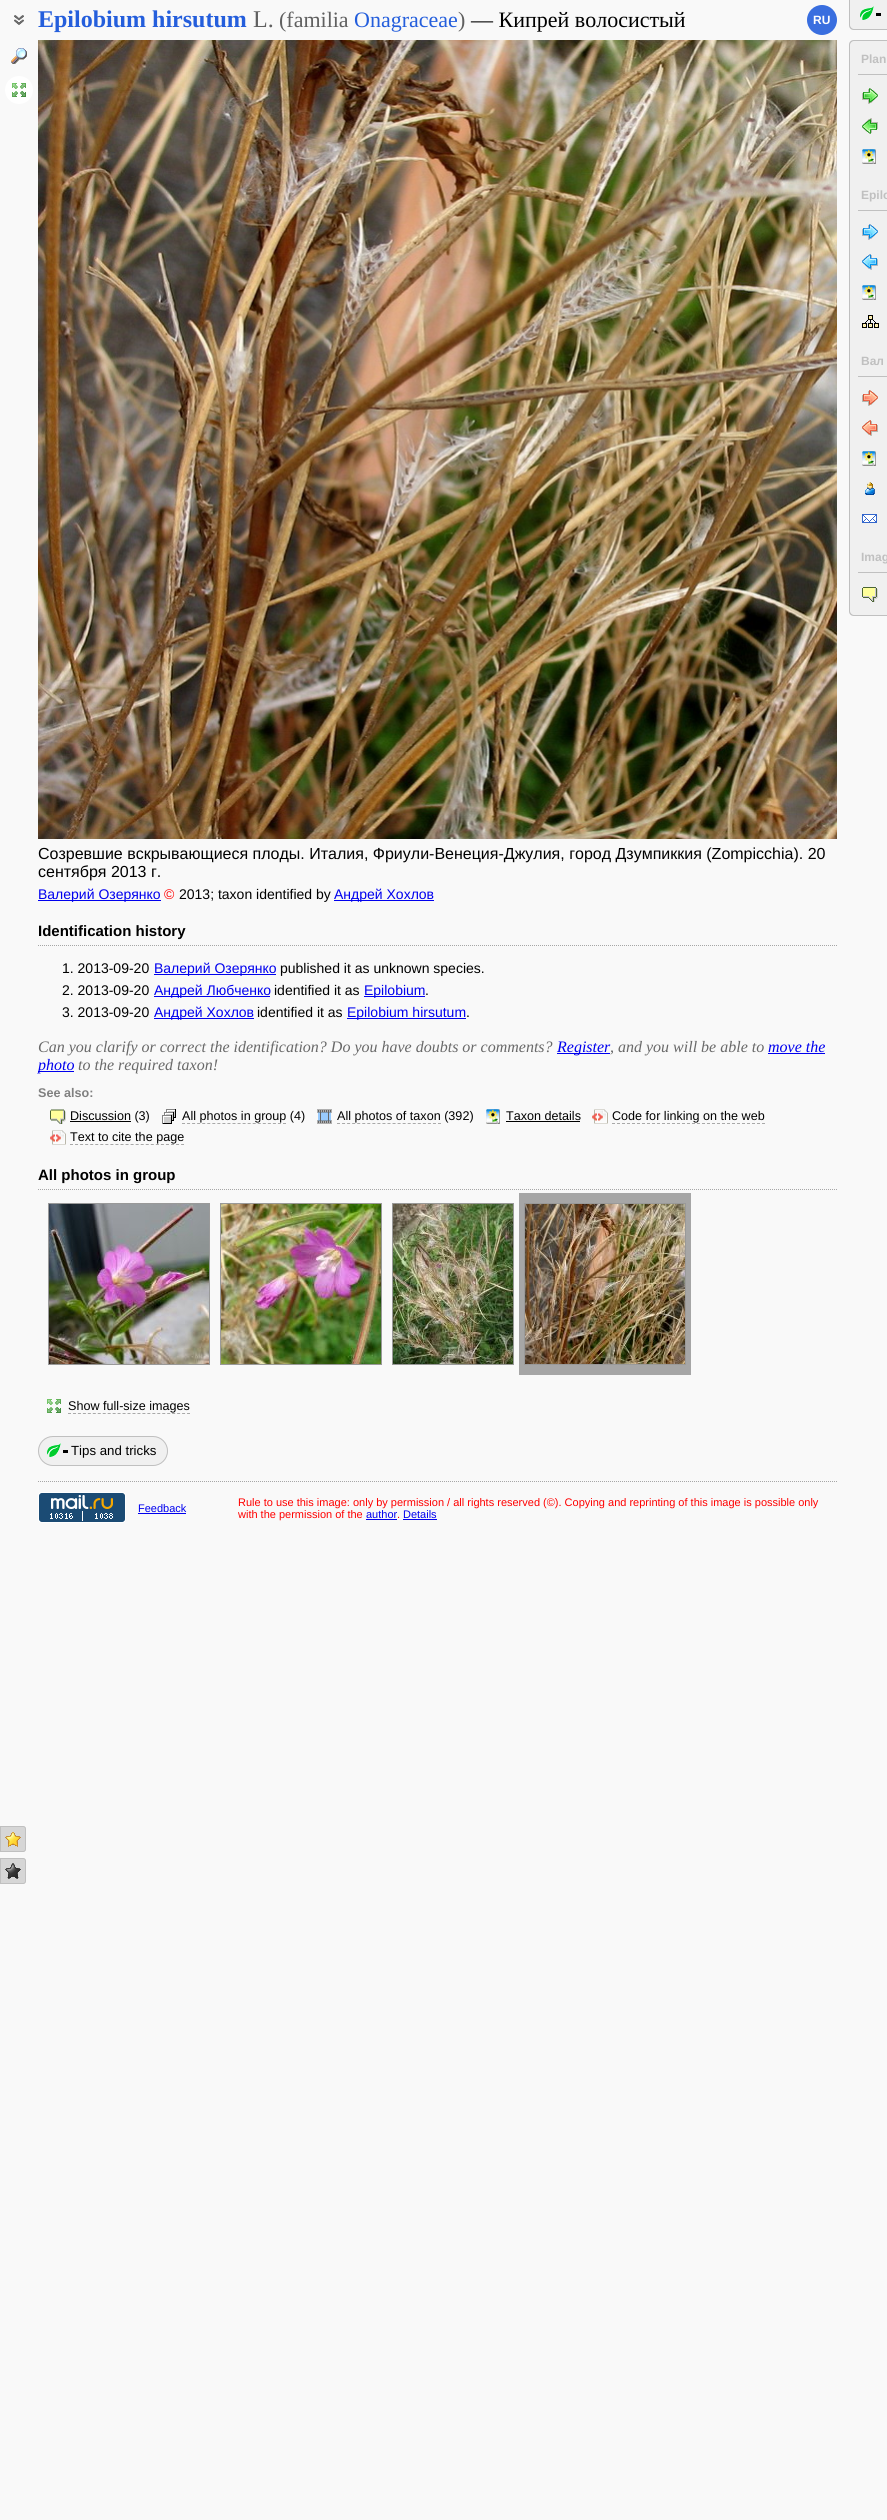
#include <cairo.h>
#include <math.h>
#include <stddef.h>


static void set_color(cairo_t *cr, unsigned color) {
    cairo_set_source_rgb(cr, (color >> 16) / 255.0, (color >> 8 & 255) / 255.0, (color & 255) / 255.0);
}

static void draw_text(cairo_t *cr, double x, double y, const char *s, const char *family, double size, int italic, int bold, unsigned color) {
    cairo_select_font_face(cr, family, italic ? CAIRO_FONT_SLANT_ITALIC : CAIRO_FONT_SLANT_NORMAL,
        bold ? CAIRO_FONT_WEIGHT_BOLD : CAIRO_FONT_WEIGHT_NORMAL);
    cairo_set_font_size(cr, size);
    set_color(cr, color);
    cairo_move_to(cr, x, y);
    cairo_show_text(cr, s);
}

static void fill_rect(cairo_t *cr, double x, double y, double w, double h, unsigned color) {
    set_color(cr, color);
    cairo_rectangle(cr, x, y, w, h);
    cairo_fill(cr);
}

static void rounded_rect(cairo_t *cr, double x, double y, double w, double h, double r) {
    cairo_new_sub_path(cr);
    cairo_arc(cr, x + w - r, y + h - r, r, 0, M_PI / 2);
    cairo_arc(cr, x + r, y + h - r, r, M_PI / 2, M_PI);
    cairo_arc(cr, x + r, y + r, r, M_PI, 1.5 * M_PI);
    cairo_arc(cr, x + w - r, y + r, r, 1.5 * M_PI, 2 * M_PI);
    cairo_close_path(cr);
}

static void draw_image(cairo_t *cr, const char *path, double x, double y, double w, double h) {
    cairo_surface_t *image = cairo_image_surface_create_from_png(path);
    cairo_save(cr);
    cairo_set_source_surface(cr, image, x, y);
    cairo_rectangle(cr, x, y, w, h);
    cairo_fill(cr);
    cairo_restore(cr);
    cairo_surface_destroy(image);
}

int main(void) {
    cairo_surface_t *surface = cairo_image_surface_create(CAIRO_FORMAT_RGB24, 887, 2520);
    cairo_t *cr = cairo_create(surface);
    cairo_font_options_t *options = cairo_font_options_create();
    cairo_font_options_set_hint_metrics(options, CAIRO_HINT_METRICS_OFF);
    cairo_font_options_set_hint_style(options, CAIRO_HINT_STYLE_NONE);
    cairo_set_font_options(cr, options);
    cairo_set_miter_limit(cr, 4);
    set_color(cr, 0xF9F9F9);
    cairo_paint(cr);
    draw_image(cr, "assets/img1.png", 14, 15, 10, 10);
    draw_text(cr, 38, 27, "Epilobium hirsutum", "Liberation Serif", 24, 0, 1, 0x245EDC);
    draw_text(cr, 253, 27, "L.", "Liberation Serif", 24, 0, 0, 0x606060);
    draw_text(cr, 279, 27, "(familia", "Liberation Serif", 22, 0, 0, 0x606060);
    draw_text(cr, 354, 27, "Onagraceae", "Liberation Serif", 22, 0, 0, 0x245EDC);
    draw_text(cr, 458, 27, ")", "Liberation Serif", 22, 0, 0, 0x606060);
    draw_text(cr, 471, 27, "— Кипрей волосистый", "Liberation Serif", 22, 0, 0, 0x000000);
    set_color(cr, 0x396EDF);
    cairo_new_path(cr);
    cairo_arc(cr, 822, 20, 15, 0, 2 * M_PI);
    cairo_fill(cr);
    draw_text(cr, 813, 24, "RU", "Liberation Sans", 12, 0, 1, 0xFEFEFE);
    draw_image(cr, "assets/img2.png", 11, 48, 16, 16);
    set_color(cr, 0xFFFFFF);
    cairo_arc(cr, 19, 90, 14, 0, 2 * M_PI);
    cairo_fill(cr);
    draw_image(cr, "assets/img3.png", 12, 83, 14, 14);
    set_color(cr, 0xD6D6D6);
    cairo_new_path(cr);
    cairo_move_to(cr, 0, 1826);
    cairo_line_to(cr, 23, 1826);
    cairo_curve_to(cr, 24.5, 1826, 26, 1827.5, 26, 1829);
    cairo_line_to(cr, 26, 1849);
    cairo_curve_to(cr, 26, 1850.5, 24.5, 1852, 23, 1852);
    cairo_line_to(cr, 0, 1852);
    cairo_close_path(cr);
    cairo_fill(cr);
    draw_image(cr, "assets/img4.png", 5, 1832, 16, 15);
    cairo_new_path(cr);
    cairo_move_to(cr, 0.5, 1826.5);
    cairo_line_to(cr, 23, 1826.5);
    cairo_curve_to(cr, 24.5, 1826.5, 25.5, 1827.5, 25.5, 1829);
    cairo_line_to(cr, 25.5, 1849);
    cairo_curve_to(cr, 25.5, 1850.5, 24.5, 1851.5, 23, 1851.5);
    cairo_line_to(cr, 0.5, 1851.5);
    cairo_close_path(cr);
    set_color(cr, 0xC0C0C0);
    cairo_set_line_width(cr, 1);
    cairo_stroke(cr);
    set_color(cr, 0xD6D6D6);
    cairo_new_path(cr);
    cairo_move_to(cr, 0, 1858);
    cairo_line_to(cr, 23, 1858);
    cairo_curve_to(cr, 24.5, 1858, 26, 1859.5, 26, 1861);
    cairo_line_to(cr, 26, 1881);
    cairo_curve_to(cr, 26, 1882.5, 24.5, 1884, 23, 1884);
    cairo_line_to(cr, 0, 1884);
    cairo_close_path(cr);
    cairo_fill(cr);
    draw_image(cr, "assets/img5.png", 5, 1863, 16, 16);
    cairo_new_path(cr);
    cairo_move_to(cr, 0.5, 1858.5);
    cairo_line_to(cr, 23, 1858.5);
    cairo_curve_to(cr, 24.5, 1858.5, 25.5, 1859.5, 25.5, 1861);
    cairo_line_to(cr, 25.5, 1881);
    cairo_curve_to(cr, 25.5, 1882.5, 24.5, 1883.5, 23, 1883.5);
    cairo_line_to(cr, 0.5, 1883.5);
    cairo_close_path(cr);
    set_color(cr, 0xC0C0C0);
    cairo_stroke(cr);
    set_color(cr, 0xF0F0F0);
    cairo_new_path(cr);
    cairo_move_to(cr, 849, 0);
    cairo_line_to(cr, 887, 0);
    cairo_line_to(cr, 887, 30);
    cairo_line_to(cr, 854, 30);
    cairo_curve_to(cr, 851, 30, 849, 28, 849, 25);
    cairo_close_path(cr);
    cairo_fill(cr);
    draw_image(cr, "assets/img6.png", 860, 6, 14, 14);
    set_color(cr, 0xC0C0C0);
    cairo_set_fill_rule(cr, CAIRO_FILL_RULE_EVEN_ODD);
    cairo_new_path(cr);
    cairo_move_to(cr, 849, 0);
    cairo_line_to(cr, 887, 0);
    cairo_line_to(cr, 887, 30);
    cairo_line_to(cr, 854, 30);
    cairo_curve_to(cr, 851, 30, 849, 28, 849, 25);
    cairo_close_path(cr);
    cairo_move_to(cr, 850, 0);
    cairo_line_to(cr, 887, 0);
    cairo_line_to(cr, 887, 29);
    cairo_line_to(cr, 854, 29);
    cairo_curve_to(cr, 852, 29, 850, 27, 850, 25);
    cairo_close_path(cr);
    cairo_fill(cr);
    fill_rect(cr, 876, 13, 5, 3, 0x000000);
    set_color(cr, 0xF0F0F0);
    cairo_new_path(cr);
    cairo_move_to(cr, 854, 40);
    cairo_line_to(cr, 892, 40);
    cairo_line_to(cr, 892, 616);
    cairo_line_to(cr, 854, 616);
    cairo_curve_to(cr, 851, 616, 849, 614, 849, 611);
    cairo_line_to(cr, 849, 45);
    cairo_curve_to(cr, 849, 42, 851, 40, 854, 40);
    cairo_close_path(cr);
    cairo_fill(cr);
    set_color(cr, 0xC0C0C0);
    cairo_new_path(cr);
    cairo_move_to(cr, 854, 40);
    cairo_line_to(cr, 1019, 40);
    cairo_line_to(cr, 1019, 616);
    cairo_line_to(cr, 854, 616);
    cairo_curve_to(cr, 851, 616, 849, 614, 849, 611);
    cairo_line_to(cr, 849, 45);
    cairo_curve_to(cr, 849, 42, 851, 40, 854, 40);
    cairo_close_path(cr);
    cairo_move_to(cr, 854, 41);
    cairo_line_to(cr, 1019, 41);
    cairo_line_to(cr, 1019, 615);
    cairo_line_to(cr, 854, 615);
    cairo_curve_to(cr, 852, 615, 850, 613, 850, 611);
    cairo_line_to(cr, 850, 45);
    cairo_curve_to(cr, 850, 43, 852, 41, 854, 41);
    cairo_close_path(cr);
    cairo_fill(cr);
    fill_rect(cr, 858, 74, 29, 1, 0xC0C0C0);
    draw_text(cr, 861, 63, "Plan", "Liberation Sans", 12, 0, 1, 0xC0C0C0);
    draw_image(cr, "assets/img7.png", 862, 88, 16, 16);
    draw_image(cr, "assets/img8.png", 862, 118, 16, 16);
    draw_image(cr, "assets/img9.png", 862, 149, 14, 15);
    fill_rect(cr, 858, 210, 29, 1, 0xC0C0C0);
    draw_text(cr, 861, 199, "Epilo", "Liberation Sans", 12, 0, 1, 0xC0C0C0);
    draw_image(cr, "assets/img10.png", 862, 224, 16, 16);
    draw_image(cr, "assets/img11.png", 862, 254, 16, 16);
    draw_image(cr, "assets/img9.png", 862, 285, 14, 15);
    draw_image(cr, "assets/img12.png", 862, 315, 17, 13);
    fill_rect(cr, 858, 376, 29, 1, 0xC0C0C0);
    draw_text(cr, 861, 365, "Вал", "Liberation Sans", 12, 0, 1, 0xC0C0C0);
    draw_image(cr, "assets/img13.png", 862, 390, 16, 16);
    draw_image(cr, "assets/img14.png", 862, 420, 16, 16);
    draw_image(cr, "assets/img9.png", 862, 451, 14, 15);
    draw_image(cr, "assets/img15.png", 865, 482, 10, 13);
    draw_image(cr, "assets/img16.png", 862, 514, 15, 9);
    fill_rect(cr, 858, 572, 29, 1, 0xC0C0C0);
    draw_text(cr, 861, 561, "Imag", "Liberation Sans", 12, 0, 1, 0xC0C0C0);
    draw_image(cr, "assets/img17.png", 862, 587, 16, 15);
    draw_image(cr, "assets/img18.png", 38, 40, 799, 799);
    draw_text(cr, 38, 859, "Созревшие вскрывающиеся плоды. Италия, Фриули-Венеция-Джулия, город Дзумпиккия (Zompicchia). 20", "Liberation Sans", 16, 0, 0, 0x000000);
    draw_text(cr, 38, 877, "сентября 2013 г.", "Liberation Sans", 16, 0, 0, 0x000000);
    fill_rect(cr, 38, 900, 123, 1, 0x0000EE);
    draw_text(cr, 38, 899, "Валерий Озерянко", "Liberation Sans", 14, 0, 0, 0x0000EE);
    draw_text(cr, 164, 899, "©", "Liberation Sans", 14, 0, 0, 0xFF0000);
    draw_text(cr, 179, 899, "2013; taxon identified by", "Liberation Sans", 14, 0, 0, 0x000000);
    fill_rect(cr, 334, 900, 100, 1, 0x0000EE);
    draw_text(cr, 334, 899, "Андрей Хохлов", "Liberation Sans", 14, 0, 0, 0x0000EE);
    cairo_new_path(cr);
    cairo_move_to(cr, 38, 945.5);
    cairo_line_to(cr, 837, 945.5);
    set_color(cr, 0xA6A6A6);
    cairo_set_dash(cr, (double[]){1, 1}, 2, 0);
    cairo_stroke(cr);
    draw_text(cr, 38, 936, "Identification history", "Liberation Sans", 15, 0, 1, 0x000000);
    draw_text(cr, 62, 973, "1. 2013-09-20", "Liberation Sans", 14, 0, 0, 0x000000);
    fill_rect(cr, 154, 974, 122, 1, 0x0000EE);
    draw_text(cr, 154, 973, "Валерий Озерянко", "Liberation Sans", 14, 0, 0, 0x0000EE);
    draw_text(cr, 280, 973, "published it as unknown species.", "Liberation Sans", 14, 0, 0, 0x000000);
    draw_text(cr, 62, 995, "2. 2013-09-20", "Liberation Sans", 14, 0, 0, 0x000000);
    fill_rect(cr, 154, 996, 116, 1, 0x0000EE);
    draw_text(cr, 154, 995, "Андрей Любченко", "Liberation Sans", 14, 0, 0, 0x0000EE);
    draw_text(cr, 274, 995, "identified it as", "Liberation Sans", 14, 0, 0, 0x000000);
    fill_rect(cr, 364, 996, 61, 1, 0x0000EE);
    draw_text(cr, 364, 995, "Epilobium", "Liberation Sans", 14, 0, 0, 0x0000EE);
    draw_text(cr, 425, 995, ".", "Liberation Sans", 14, 0, 0, 0x000000);
    draw_text(cr, 62, 1017, "3. 2013-09-20", "Liberation Sans", 14, 0, 0, 0x000000);
    fill_rect(cr, 154, 1018, 100, 1, 0x0000EE);
    draw_text(cr, 154, 1017, "Андрей Хохлов", "Liberation Sans", 14, 0, 0, 0x0000EE);
    draw_text(cr, 257, 1017, "identified it as", "Liberation Sans", 14, 0, 0, 0x000000);
    fill_rect(cr, 347, 1018, 119, 1, 0x0000EE);
    draw_text(cr, 347, 1017, "Epilobium hirsutum", "Liberation Sans", 14, 0, 0, 0x0000EE);
    draw_text(cr, 466, 1017, ".", "Liberation Sans", 14, 0, 0, 0x000000);
    draw_text(cr, 38, 1052, "Can you clarify or correct the identification? Do you have doubts or comments?", "Liberation Serif", 16, 1, 0, 0x696969);
    fill_rect(cr, 557, 1053, 53, 1, 0x0000EE);
    draw_text(cr, 557, 1052, "Register", "Liberation Serif", 16, 1, 0, 0x0000EE);
    draw_text(cr, 610, 1052, ", and you will be able to", "Liberation Serif", 16, 1, 0, 0x696969);
    draw_text(cr, 768, 1052, "move the", "Liberation Serif", 16, 1, 0, 0x0000EE);
    fill_rect(cr, 768, 1053, 57, 1, 0x0000EE);
    fill_rect(cr, 38, 1071, 36, 1, 0x0000EE);
    draw_text(cr, 38, 1070, "photo", "Liberation Serif", 16, 1, 0, 0x0000EE);
    draw_text(cr, 78, 1070, "to the required taxon!", "Liberation Serif", 16, 1, 0, 0x696969);
    draw_text(cr, 38, 1097, "See also:", "Liberation Sans", 12.6, 0, 1, 0x808080);
    draw_image(cr, "assets/img19.png", 50, 1109, 16, 15);
    fill_rect(cr, 70, 1121, 61, 1, 0x000000);
    draw_text(cr, 70, 1120, "Discussion (3)", "Liberation Sans", 12.6, 0, 0, 0x000000);
    draw_image(cr, "assets/img20.png", 162, 1109, 14, 15);
    draw_text(cr, 182, 1120, "All photos in group (4)", "Liberation Sans", 12.6, 0, 0, 0x000000);
    cairo_new_path(cr);
    cairo_move_to(cr, 182, 1123.5);
    cairo_line_to(cr, 286, 1123.5);
    set_color(cr, 0xA9A9A9);
    cairo_set_dash(cr, (double[]){3, 2.05}, 2, 0);
    cairo_stroke(cr);
    draw_image(cr, "assets/img21.png", 317, 1109, 15, 15);
    draw_text(cr, 337, 1120, "All photos of taxon (392)", "Liberation Sans", 12.6, 0, 0, 0x000000);
    cairo_new_path(cr);
    cairo_move_to(cr, 337, 1123.5);
    cairo_line_to(cr, 441, 1123.5);
    set_color(cr, 0xA9A9A9);
    cairo_stroke(cr);
    draw_image(cr, "assets/img9.png", 486, 1109, 14, 15);
    draw_text(cr, 506, 1120, "Taxon details", "Liberation Sans", 12.6, 0, 0, 0x000000);
    fill_rect(cr, 506, 1121, 74, 1, 0x000000);
    draw_image(cr, "assets/img22.png", 592, 1109, 16, 15);
    draw_text(cr, 612, 1120, "Code for linking on the web", "Liberation Sans", 12.6, 0, 0, 0x000000);
    cairo_new_path(cr);
    cairo_move_to(cr, 612, 1123.5);
    cairo_line_to(cr, 765, 1123.5);
    set_color(cr, 0xA9A9A9);
    cairo_set_dash(cr, (double[]){3, 2}, 2, 0);
    cairo_stroke(cr);
    draw_image(cr, "assets/img22.png", 50, 1130, 16, 15);
    draw_text(cr, 70, 1141, "Text to cite the page", "Liberation Sans", 12.6, 0, 0, 0x000000);
    cairo_new_path(cr);
    cairo_move_to(cr, 70, 1144.5);
    cairo_line_to(cr, 184, 1144.5);
    set_color(cr, 0xA9A9A9);
    cairo_set_dash(cr, (double[]){3, 2.05}, 2, 0);
    cairo_stroke(cr);
    cairo_new_path(cr);
    cairo_move_to(cr, 38, 1189.5);
    cairo_line_to(cr, 837, 1189.5);
    set_color(cr, 0xA6A6A6);
    cairo_set_dash(cr, (double[]){1, 1}, 2, 0);
    cairo_stroke(cr);
    draw_text(cr, 38, 1180, "All photos in group", "Liberation Sans", 15, 0, 1, 0x000000);
    cairo_rectangle(cr, 48.5, 1203.5, 161, 161);
    set_color(cr, 0x999999);
    cairo_set_dash(cr, NULL, 0, 0);
    cairo_stroke(cr);
    draw_image(cr, "assets/img23.png", 49, 1204, 160, 160);
    cairo_rectangle(cr, 220.5, 1203.5, 161, 161);
    cairo_stroke(cr);
    draw_image(cr, "assets/img24.png", 221, 1204, 160, 160);
    cairo_rectangle(cr, 392.5, 1203.5, 121, 161);
    cairo_stroke(cr);
    draw_image(cr, "assets/img25.png", 393, 1204, 120, 160);
    fill_rect(cr, 519, 1193, 172, 182, 0xA6A6A6);
    cairo_rectangle(cr, 524.5, 1203.5, 161, 161);
    set_color(cr, 0x999999);
    cairo_stroke(cr);
    draw_image(cr, "assets/img26.png", 525, 1204, 160, 160);
    draw_image(cr, "assets/img27.png", 47, 1399, 14, 14);
    draw_text(cr, 68, 1410, "Show full-size images", "Liberation Sans", 12.6, 0, 0, 0x000000);
    cairo_new_path(cr);
    cairo_move_to(cr, 68, 1413.5);
    cairo_line_to(cr, 190, 1413.5);
    set_color(cr, 0xA9A9A9);
    cairo_set_dash(cr, (double[]){3, 1.96}, 2, 0);
    cairo_stroke(cr);
    set_color(cr, 0xF0F0F0);
    rounded_rect(cr, 38, 1436, 130, 30, 15);
    cairo_fill(cr);
    fill_rect(cr, 63, 1450, 5, 3, 0x000000);
    rounded_rect(cr, 38.5, 1436.5, 129, 29, 14.5);
    set_color(cr, 0xC0C0C0);
    cairo_set_dash(cr, NULL, 0, 0);
    cairo_stroke(cr);
    draw_image(cr, "assets/img6.png", 47, 1443, 14, 14);
    draw_text(cr, 71, 1455, "Tips and tricks", "Liberation Sans", 13.25, 0, 0, 0x000000);
    cairo_new_path(cr);
    cairo_move_to(cr, 38, 1481.5);
    cairo_line_to(cr, 837, 1481.5);
    set_color(cr, 0xA6A6A6);
    cairo_set_dash(cr, (double[]){1, 1}, 2, 0);
    cairo_stroke(cr);
    draw_image(cr, "assets/img28.png", 38, 1492, 88, 31);
    draw_text(cr, 138, 1512, "Feedback", "Liberation Sans", 11, 0, 0, 0x0000EE);
    fill_rect(cr, 138, 1513, 48, 1, 0x0000EE);
    draw_text(cr, 238, 1506, "Rule to use this image: only by permission / all rights reserved (©). Copying and reprinting of this image is possible only", "Liberation Sans", 11, 0, 0, 0xFF0000);
    draw_text(cr, 238, 1518, "with the permission of the", "Liberation Sans", 11, 0, 0, 0xFF0000);
    draw_text(cr, 366, 1518, "author", "Liberation Sans", 11, 0, 0, 0x0000EE);
    draw_text(cr, 397, 1518, ".", "Liberation Sans", 11, 0, 0, 0xFF0000);
    fill_rect(cr, 366, 1519, 31, 1, 0x0000EE);
    fill_rect(cr, 403, 1519, 34, 1, 0x0000EE);
    draw_text(cr, 403, 1518, "Details", "Liberation Sans", 11, 0, 0, 0x0000EE);
    cairo_surface_write_to_png(surface, "output.png");
    cairo_font_options_destroy(options);
    cairo_destroy(cr);
    cairo_surface_destroy(surface);
    return 0;
}
